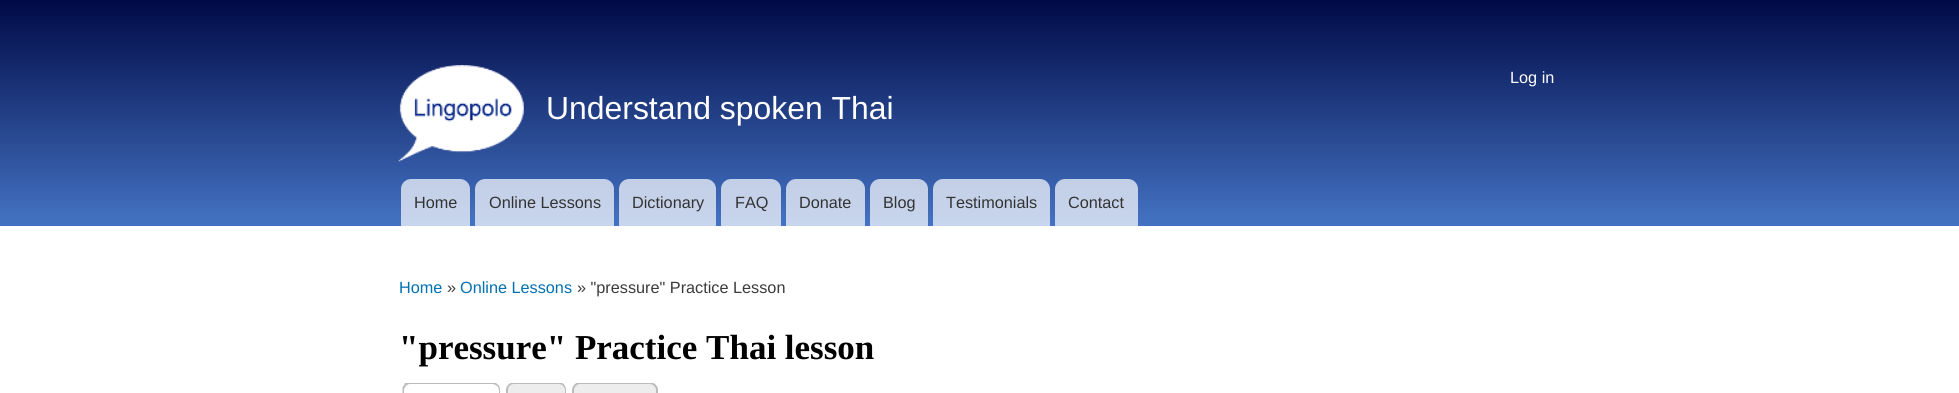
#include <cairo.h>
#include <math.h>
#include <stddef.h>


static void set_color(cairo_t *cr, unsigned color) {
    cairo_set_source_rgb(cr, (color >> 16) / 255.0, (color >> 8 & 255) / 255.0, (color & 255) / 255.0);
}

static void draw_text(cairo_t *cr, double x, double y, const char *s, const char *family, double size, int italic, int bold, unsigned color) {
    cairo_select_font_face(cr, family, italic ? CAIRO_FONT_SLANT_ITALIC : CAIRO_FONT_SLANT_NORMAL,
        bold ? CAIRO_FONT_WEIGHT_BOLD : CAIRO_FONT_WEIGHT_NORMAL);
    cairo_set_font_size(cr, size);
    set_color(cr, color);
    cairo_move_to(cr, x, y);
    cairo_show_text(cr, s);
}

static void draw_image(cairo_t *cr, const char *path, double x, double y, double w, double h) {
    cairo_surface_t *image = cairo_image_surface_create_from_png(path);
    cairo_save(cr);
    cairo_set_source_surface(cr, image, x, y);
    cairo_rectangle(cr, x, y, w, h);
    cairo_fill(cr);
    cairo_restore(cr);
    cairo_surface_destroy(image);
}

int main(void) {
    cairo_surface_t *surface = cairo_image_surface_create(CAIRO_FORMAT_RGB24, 1959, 393);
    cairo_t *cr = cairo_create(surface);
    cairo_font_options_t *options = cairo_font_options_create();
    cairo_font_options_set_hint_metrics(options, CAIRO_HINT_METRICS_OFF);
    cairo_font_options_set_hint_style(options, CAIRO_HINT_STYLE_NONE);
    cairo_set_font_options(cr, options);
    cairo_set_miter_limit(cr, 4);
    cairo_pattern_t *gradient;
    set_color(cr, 0xFFFFFF);
    cairo_paint(cr);
    gradient = cairo_pattern_create_linear(980, 0, 980, 226);
    cairo_pattern_add_color_stop_rgba(gradient, 0, 0, 0.039, 0.278, 1);
    cairo_pattern_add_color_stop_rgba(gradient, 1, 0.267, 0.451, 0.765, 1);
    cairo_set_source(cr, gradient);
    cairo_pattern_destroy(gradient);
    cairo_rectangle(cr, 0, 0, 1959, 226);
    cairo_fill(cr);
    draw_text(cr, 1510, 83, "Log in", "Liberation Sans", 16.25, 0, 0, 0xFFFEFF);
    draw_image(cr, "assets/img1.png", 398, 65, 126, 97);
    draw_text(cr, 546, 119, "Understand spoken Thai", "Liberation Sans", 31.9, 0, 0, 0xFFFEFF);
    cairo_set_source_rgba(cr, 1, 1, 1, 0.7);
    cairo_new_path(cr);
    cairo_move_to(cr, 411, 179);
    cairo_line_to(cr, 460, 179);
    cairo_curve_to(cr, 465.5, 179, 470, 183.5, 470, 189);
    cairo_line_to(cr, 470, 226);
    cairo_line_to(cr, 401, 226);
    cairo_line_to(cr, 401, 189);
    cairo_curve_to(cr, 401, 183.5, 405.5, 179, 411, 179);
    cairo_close_path(cr);
    cairo_fill(cr);
    draw_text(cr, 414, 208, "Home", "Liberation Sans", 16.25, 0, 0, 0x333333);
    cairo_set_source_rgba(cr, 1, 1, 1, 0.7);
    cairo_new_path(cr);
    cairo_move_to(cr, 485, 179);
    cairo_line_to(cr, 604, 179);
    cairo_curve_to(cr, 609.5, 179, 614, 183.5, 614, 189);
    cairo_line_to(cr, 614, 226);
    cairo_line_to(cr, 475, 226);
    cairo_line_to(cr, 475, 189);
    cairo_curve_to(cr, 475, 183.5, 479.5, 179, 485, 179);
    cairo_close_path(cr);
    cairo_fill(cr);
    draw_text(cr, 489, 208, "Online Lessons", "Liberation Sans", 16.25, 0, 0, 0x333333);
    cairo_set_source_rgba(cr, 1, 1, 1, 0.7);
    cairo_new_path(cr);
    cairo_move_to(cr, 629, 179);
    cairo_line_to(cr, 706, 179);
    cairo_curve_to(cr, 711.5, 179, 716, 183.5, 716, 189);
    cairo_line_to(cr, 716, 226);
    cairo_line_to(cr, 619, 226);
    cairo_line_to(cr, 619, 189);
    cairo_curve_to(cr, 619, 183.5, 623.5, 179, 629, 179);
    cairo_close_path(cr);
    cairo_fill(cr);
    draw_text(cr, 632, 208, "Dictionary", "Liberation Sans", 16.25, 0, 0, 0x333333);
    cairo_set_source_rgba(cr, 1, 1, 1, 0.7);
    cairo_new_path(cr);
    cairo_move_to(cr, 731, 179);
    cairo_line_to(cr, 771, 179);
    cairo_curve_to(cr, 776.5, 179, 781, 183.5, 781, 189);
    cairo_line_to(cr, 781, 226);
    cairo_line_to(cr, 721, 226);
    cairo_line_to(cr, 721, 189);
    cairo_curve_to(cr, 721, 183.5, 725.5, 179, 731, 179);
    cairo_close_path(cr);
    cairo_fill(cr);
    draw_text(cr, 735, 208, "FAQ", "Liberation Sans", 16.25, 0, 0, 0x333333);
    cairo_set_source_rgba(cr, 1, 1, 1, 0.7);
    cairo_new_path(cr);
    cairo_move_to(cr, 796, 179);
    cairo_line_to(cr, 855, 179);
    cairo_curve_to(cr, 860.5, 179, 865, 183.5, 865, 189);
    cairo_line_to(cr, 865, 226);
    cairo_line_to(cr, 786, 226);
    cairo_line_to(cr, 786, 189);
    cairo_curve_to(cr, 786, 183.5, 790.5, 179, 796, 179);
    cairo_close_path(cr);
    cairo_fill(cr);
    draw_text(cr, 799, 208, "Donate", "Liberation Sans", 16.25, 0, 0, 0x333333);
    cairo_set_source_rgba(cr, 1, 1, 1, 0.7);
    cairo_new_path(cr);
    cairo_move_to(cr, 880, 179);
    cairo_line_to(cr, 918, 179);
    cairo_curve_to(cr, 923.5, 179, 928, 183.5, 928, 189);
    cairo_line_to(cr, 928, 226);
    cairo_line_to(cr, 870, 226);
    cairo_line_to(cr, 870, 189);
    cairo_curve_to(cr, 870, 183.5, 874.5, 179, 880, 179);
    cairo_close_path(cr);
    cairo_fill(cr);
    draw_text(cr, 883, 208, "Blog", "Liberation Sans", 16.25, 0, 0, 0x333333);
    cairo_set_source_rgba(cr, 1, 1, 1, 0.7);
    cairo_new_path(cr);
    cairo_move_to(cr, 943, 179);
    cairo_line_to(cr, 1040, 179);
    cairo_curve_to(cr, 1045.5, 179, 1050, 183.5, 1050, 189);
    cairo_line_to(cr, 1050, 226);
    cairo_line_to(cr, 933, 226);
    cairo_line_to(cr, 933, 189);
    cairo_curve_to(cr, 933, 183.5, 937.5, 179, 943, 179);
    cairo_close_path(cr);
    cairo_fill(cr);
    draw_text(cr, 946, 208, "Testimonials", "Liberation Sans", 16.25, 0, 0, 0x333333);
    cairo_set_source_rgba(cr, 1, 1, 1, 0.7);
    cairo_new_path(cr);
    cairo_move_to(cr, 1065, 179);
    cairo_line_to(cr, 1128, 179);
    cairo_curve_to(cr, 1133.5, 179, 1138, 183.5, 1138, 189);
    cairo_line_to(cr, 1138, 226);
    cairo_line_to(cr, 1055, 226);
    cairo_line_to(cr, 1055, 189);
    cairo_curve_to(cr, 1055, 183.5, 1059.5, 179, 1065, 179);
    cairo_close_path(cr);
    cairo_fill(cr);
    draw_text(cr, 1068, 208, "Contact", "Liberation Sans", 16.25, 0, 0, 0x333333);
    draw_text(cr, 399, 293, "Home", "Liberation Sans", 16.25, 0, 0, 0x0070B3);
    draw_text(cr, 447, 293, "»", "Liberation Sans", 16.25, 0, 0, 0x3B3B3B);
    draw_text(cr, 460, 293, "Online Lessons", "Liberation Sans", 16.25, 0, 0, 0x0070B3);
    draw_text(cr, 577, 293, "» \"pressure\" Practice Lesson", "Liberation Sans", 16.25, 0, 0, 0x3B3B3B);
    draw_text(cr, 399, 359, "\"pressure\" Practice Thai lesson", "Liberation Serif", 35, 0, 1, 0x000000);
    cairo_save(cr);
    cairo_rectangle(cr, 399, 383, 1162, 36);
    cairo_clip(cr);
    set_color(cr, 0xBBBBBB);
    cairo_new_path(cr);
    cairo_move_to(cr, 410, 384);
    cairo_curve_to(cr, 408, 384, 407, 385, 406, 386);
    cairo_line_to(cr, 404, 384);
    cairo_line_to(cr, 407, 382);
    cairo_line_to(cr, 495, 382);
    cairo_line_to(cr, 498, 385);
    cairo_line_to(cr, 497, 386);
    cairo_curve_to(cr, 496, 385, 494, 384, 492, 384);
    cairo_close_path(cr);
    cairo_fill(cr);
    cairo_restore(cr);
    set_color(cr, 0xBBBBBB);
    cairo_new_path(cr);
    cairo_move_to(cr, 500, 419);
    cairo_line_to(cr, 500, 390);
    cairo_curve_to(cr, 500, 388, 499.5, 386, 498, 384.5);
    cairo_line_to(cr, 497, 385.5);
    cairo_curve_to(cr, 498, 387, 499, 388.5, 499, 390);
    cairo_line_to(cr, 499, 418);
    cairo_close_path(cr);
    cairo_fill(cr);
    cairo_new_path(cr);
    cairo_move_to(cr, 402.5, 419);
    cairo_line_to(cr, 402.5, 387.5);
    cairo_line_to(cr, 404.5, 384.5);
    cairo_line_to(cr, 406, 386);
    cairo_curve_to(cr, 405, 387, 404, 388.5, 404, 390);
    cairo_line_to(cr, 404, 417);
    cairo_close_path(cr);
    cairo_fill(cr);
    set_color(cr, 0xEDEDED);
    cairo_new_path(cr);
    cairo_move_to(cr, 514, 383);
    cairo_line_to(cr, 558, 383);
    cairo_curve_to(cr, 562.5, 383, 566, 386.5, 566, 391);
    cairo_line_to(cr, 566, 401);
    cairo_line_to(cr, 506, 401);
    cairo_line_to(cr, 506, 391);
    cairo_curve_to(cr, 506, 386.5, 509.5, 383, 514, 383);
    cairo_close_path(cr);
    cairo_fill(cr);
    cairo_save(cr);
    cairo_rectangle(cr, 399, 383, 1162, 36);
    cairo_clip(cr);
    set_color(cr, 0xBBBBBB);
    cairo_set_fill_rule(cr, CAIRO_FILL_RULE_EVEN_ODD);
    cairo_new_path(cr);
    cairo_move_to(cr, 514, 382);
    cairo_line_to(cr, 559, 382);
    cairo_curve_to(cr, 563, 382, 566, 386, 566, 390);
    cairo_line_to(cr, 566, 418);
    cairo_line_to(cr, 506, 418);
    cairo_line_to(cr, 506, 390);
    cairo_curve_to(cr, 506, 386, 510, 382, 514, 382);
    cairo_close_path(cr);
    cairo_move_to(cr, 514, 384);
    cairo_line_to(cr, 559, 384);
    cairo_curve_to(cr, 562, 384, 565, 387, 565, 390);
    cairo_line_to(cr, 565, 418);
    cairo_line_to(cr, 508, 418);
    cairo_line_to(cr, 508, 390);
    cairo_curve_to(cr, 508, 387, 510, 384, 514, 384);
    cairo_close_path(cr);
    cairo_fill(cr);
    cairo_restore(cr);
    cairo_new_path(cr);
    cairo_move_to(cr, 581, 383);
    cairo_line_to(cr, 650, 383);
    cairo_curve_to(cr, 654.5, 383, 658, 386.5, 658, 391);
    cairo_line_to(cr, 658, 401);
    cairo_line_to(cr, 573, 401);
    cairo_line_to(cr, 573, 391);
    cairo_curve_to(cr, 573, 386.5, 576.5, 383, 581, 383);
    cairo_close_path(cr);
    cairo_fill(cr);
    cairo_save(cr);
    cairo_rectangle(cr, 399, 383, 1162, 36);
    cairo_clip(cr);
    set_color(cr, 0xBBBBBB);
    cairo_set_fill_rule(cr, CAIRO_FILL_RULE_EVEN_ODD);
    cairo_new_path(cr);
    cairo_move_to(cr, 580, 382);
    cairo_line_to(cr, 650, 382);
    cairo_curve_to(cr, 654, 382, 658, 386, 658, 390);
    cairo_line_to(cr, 658, 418);
    cairo_line_to(cr, 572, 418);
    cairo_line_to(cr, 572, 390);
    cairo_curve_to(cr, 572, 386, 576, 382, 580, 382);
    cairo_close_path(cr);
    cairo_move_to(cr, 580, 384);
    cairo_line_to(cr, 650, 384);
    cairo_curve_to(cr, 653, 384, 656, 387, 656, 390);
    cairo_line_to(cr, 656, 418);
    cairo_line_to(cr, 574, 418);
    cairo_line_to(cr, 574, 390);
    cairo_curve_to(cr, 574, 387, 577, 384, 580, 384);
    cairo_close_path(cr);
    cairo_fill(cr);
    cairo_restore(cr);
    cairo_surface_write_to_png(surface, "output.png");
    cairo_font_options_destroy(options);
    cairo_destroy(cr);
    cairo_surface_destroy(surface);
    return 0;
}
